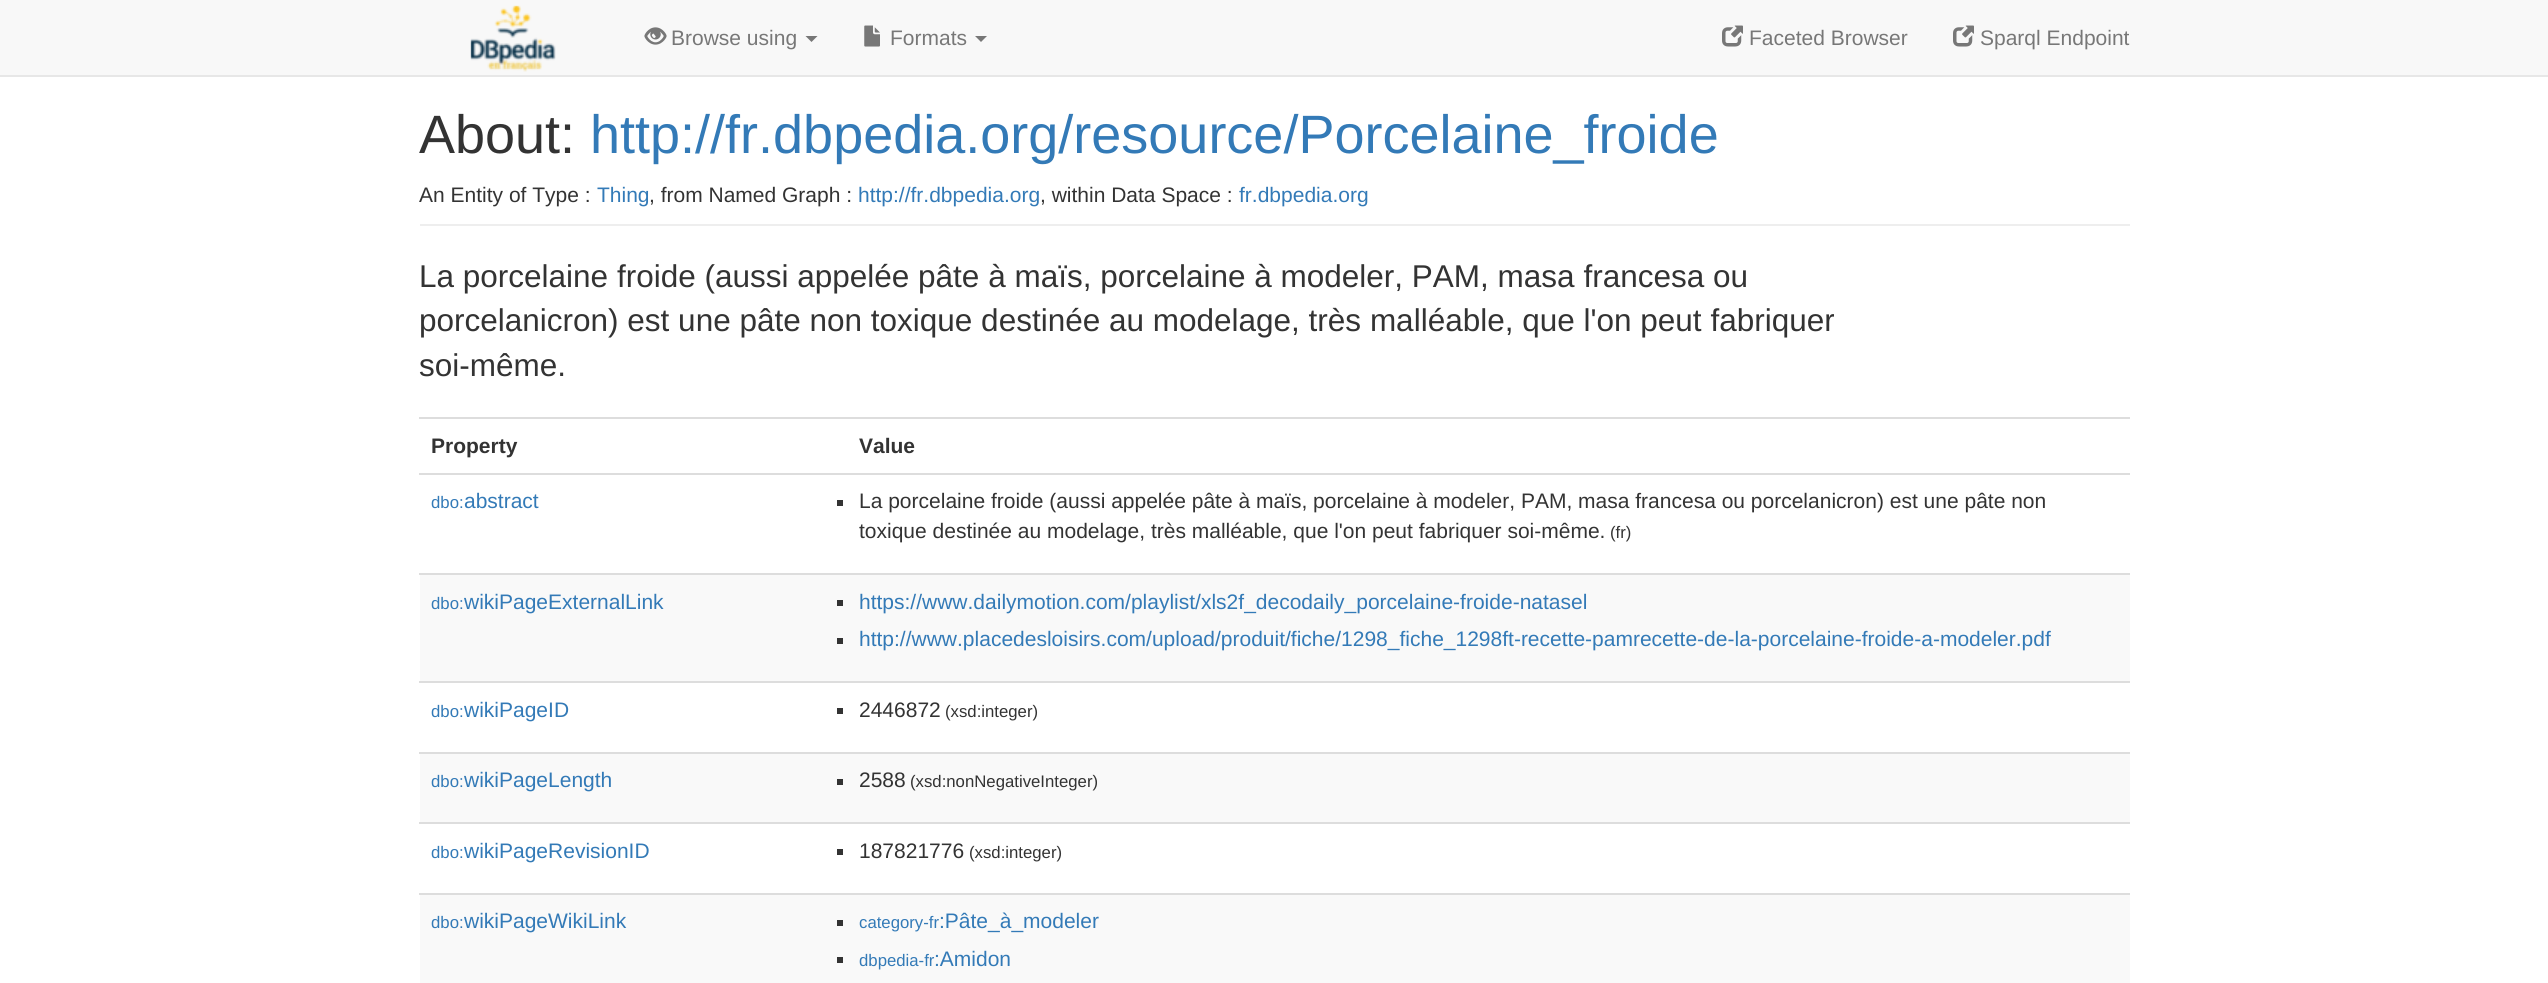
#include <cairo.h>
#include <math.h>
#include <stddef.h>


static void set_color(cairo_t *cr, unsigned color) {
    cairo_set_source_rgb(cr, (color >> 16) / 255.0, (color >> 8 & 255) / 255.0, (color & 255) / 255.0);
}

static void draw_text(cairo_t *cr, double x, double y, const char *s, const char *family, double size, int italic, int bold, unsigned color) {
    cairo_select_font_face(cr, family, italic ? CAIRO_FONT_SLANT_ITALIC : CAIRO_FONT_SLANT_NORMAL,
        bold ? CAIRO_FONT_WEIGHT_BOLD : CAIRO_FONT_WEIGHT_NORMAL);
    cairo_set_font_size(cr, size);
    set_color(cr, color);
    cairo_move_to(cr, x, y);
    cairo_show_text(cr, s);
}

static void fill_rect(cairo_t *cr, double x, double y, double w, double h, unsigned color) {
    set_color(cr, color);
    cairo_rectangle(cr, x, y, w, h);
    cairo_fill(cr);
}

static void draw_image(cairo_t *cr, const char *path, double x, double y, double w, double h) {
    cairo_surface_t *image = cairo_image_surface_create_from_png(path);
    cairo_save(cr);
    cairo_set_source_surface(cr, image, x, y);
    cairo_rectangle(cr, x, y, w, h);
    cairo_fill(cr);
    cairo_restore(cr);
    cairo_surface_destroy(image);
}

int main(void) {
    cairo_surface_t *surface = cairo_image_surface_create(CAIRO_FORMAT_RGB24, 2548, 983);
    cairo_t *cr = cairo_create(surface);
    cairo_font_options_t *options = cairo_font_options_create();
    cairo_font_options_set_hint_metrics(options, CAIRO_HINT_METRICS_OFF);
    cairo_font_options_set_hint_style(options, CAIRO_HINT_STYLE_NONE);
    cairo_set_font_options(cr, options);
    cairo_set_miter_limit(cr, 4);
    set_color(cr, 0xFFFFFF);
    cairo_paint(cr);
    fill_rect(cr, 0, 0, 2548, 75, 0xF8F8F8);
    fill_rect(cr, 0, 75, 2548, 2, 0xE7E7E7);
    draw_image(cr, "assets/img1.png", 470, 5, 86, 67);
    draw_image(cr, "assets/img2.png", 644, 27, 23, 18);
    draw_text(cr, 671, 45, "Browse using", "Liberation Sans", 21, 0, 0, 0x777777);
    cairo_new_path(cr);
    cairo_move_to(cr, 805.5, 36);
    cairo_line_to(cr, 817.5, 36);
    cairo_line_to(cr, 811.5, 42);
    cairo_close_path(cr);
    cairo_fill(cr);
    draw_image(cr, "assets/img3.png", 864, 25, 16, 22);
    draw_text(cr, 890, 45, "Formats", "Liberation Sans", 21, 0, 0, 0x777777);
    cairo_new_path(cr);
    cairo_move_to(cr, 975, 36);
    cairo_line_to(cr, 987, 36);
    cairo_line_to(cr, 981, 42);
    cairo_close_path(cr);
    cairo_fill(cr);
    draw_image(cr, "assets/img4.png", 1722, 25, 21, 22);
    draw_text(cr, 1749, 45, "Faceted Browser", "Liberation Sans", 21, 0, 0, 0x777777);
    draw_image(cr, "assets/img4.png", 1953, 25, 21, 22);
    draw_text(cr, 1980, 45, "Sparql Endpoint", "Liberation Sans", 21, 0, 0, 0x777777);
    fill_rect(cr, 420, 224, 1710, 2, 0xEEEEEE);
    draw_text(cr, 419, 153, "About:", "Liberation Sans", 54, 0, 0, 0x333333);
    draw_text(cr, 590, 153, "http://fr.dbpedia.org/resource/Porcelaine_froide", "Liberation Sans", 54, 0, 0, 0x337AB7);
    draw_text(cr, 419, 202, "An Entity of Type :", "Liberation Sans", 21, 0, 0, 0x333333);
    draw_text(cr, 597, 202, "Thing", "Liberation Sans", 21, 0, 0, 0x337AB7);
    draw_text(cr, 649, 202, ", from Named Graph :", "Liberation Sans", 21, 0, 0, 0x333333);
    draw_text(cr, 858, 202, "http://fr.dbpedia.org", "Liberation Sans", 21, 0, 0, 0x337AB7);
    draw_text(cr, 1040, 202, ", within Data Space :", "Liberation Sans", 21, 0, 0, 0x333333);
    draw_text(cr, 1239, 202, "fr.dbpedia.org", "Liberation Sans", 21, 0, 0, 0x337AB7);
    draw_text(cr, 419, 287, "La porcelaine froide (aussi appelée pâte à maïs, porcelaine à modeler, PAM, masa francesa ou", "Liberation Sans", 31.5, 0, 0, 0x333333);
    draw_text(cr, 419, 331, "porcelanicron) est une pâte non toxique destinée au modelage, très malléable, que l'on peut fabriquer", "Liberation Sans", 31.5, 0, 0, 0x333333);
    draw_text(cr, 419, 376, "soi-même.", "Liberation Sans", 31.5, 0, 0, 0x333333);
    draw_text(cr, 431, 453, "Property", "Liberation Sans", 21, 0, 1, 0x333333);
    fill_rect(cr, 419, 417, 1711, 2, 0xDDDDDD);
    draw_text(cr, 859, 453, "Value", "Liberation Sans", 21, 0, 1, 0x333333);
    draw_text(cr, 431, 508, "dbo:", "Liberation Sans", 16.75, 0, 0, 0x337AB7);
    draw_text(cr, 464, 508, "abstract", "Liberation Sans", 21, 0, 0, 0x337AB7);
    fill_rect(cr, 419, 473, 1711, 2, 0xDDDDDD);
    fill_rect(cr, 837, 500, 6, 6, 0x333333);
    draw_text(cr, 859, 508, "La porcelaine froide (aussi appelée pâte à maïs, porcelaine à modeler, PAM, masa francesa ou porcelanicron) est une pâte non", "Liberation Sans", 21, 0, 0, 0x333333);
    draw_text(cr, 859, 538, "toxique destinée au modelage, très malléable, que l'on peut fabriquer soi-même.", "Liberation Sans", 21, 0, 0, 0x333333);
    draw_text(cr, 1610, 538, "(fr)", "Liberation Sans", 16.75, 0, 0, 0x333333);
    fill_rect(cr, 420, 575, 1710, 106, 0xF9F9F9);
    draw_text(cr, 431, 609, "dbo:", "Liberation Sans", 16.75, 0, 0, 0x337AB7);
    draw_text(cr, 464, 609, "wikiPageExternalLink", "Liberation Sans", 21, 0, 0, 0x337AB7);
    fill_rect(cr, 419, 573, 1711, 2, 0xDDDDDD);
    fill_rect(cr, 837, 600, 6, 6, 0x333333);
    draw_text(cr, 859, 609, "https://www.dailymotion.com/playlist/xls2f_decodaily_porcelaine-froide-natasel", "Liberation Sans", 21, 0, 0, 0x337AB7);
    fill_rect(cr, 837, 638, 6, 6, 0x333333);
    draw_text(cr, 859, 646, "http://www.placedesloisirs.com/upload/produit/fiche/1298_fiche_1298ft-recette-pamrecette-de-la-porcelaine-froide-a-modeler.pdf", "Liberation Sans", 21, 0, 0, 0x337AB7);
    draw_text(cr, 431, 717, "dbo:", "Liberation Sans", 16.75, 0, 0, 0x337AB7);
    draw_text(cr, 464, 717, "wikiPageID", "Liberation Sans", 21, 0, 0, 0x337AB7);
    fill_rect(cr, 419, 681, 1711, 2, 0xDDDDDD);
    fill_rect(cr, 837, 708, 6, 6, 0x333333);
    draw_text(cr, 859, 717, "2446872", "Liberation Sans", 21, 0, 0, 0x333333);
    draw_text(cr, 945, 717, "(xsd:integer)", "Liberation Sans", 16.75, 0, 0, 0x333333);
    fill_rect(cr, 420, 754, 1710, 68, 0xF9F9F9);
    draw_text(cr, 431, 787, "dbo:", "Liberation Sans", 16.75, 0, 0, 0x337AB7);
    draw_text(cr, 464, 787, "wikiPageLength", "Liberation Sans", 21, 0, 0, 0x337AB7);
    fill_rect(cr, 419, 752, 1711, 2, 0xDDDDDD);
    fill_rect(cr, 837, 779, 6, 6, 0x333333);
    draw_text(cr, 859, 787, "2588", "Liberation Sans", 21, 0, 0, 0x333333);
    draw_text(cr, 910, 787, "(xsd:nonNegativeInteger)", "Liberation Sans", 16.75, 0, 0, 0x333333);
    draw_text(cr, 431, 858, "dbo:", "Liberation Sans", 16.75, 0, 0, 0x337AB7);
    draw_text(cr, 464, 858, "wikiPageRevisionID", "Liberation Sans", 21, 0, 0, 0x337AB7);
    fill_rect(cr, 419, 822, 1711, 2, 0xDDDDDD);
    fill_rect(cr, 837, 849, 6, 6, 0x333333);
    draw_text(cr, 859, 858, "187821776", "Liberation Sans", 21, 0, 0, 0x333333);
    draw_text(cr, 969, 858, "(xsd:integer)", "Liberation Sans", 16.75, 0, 0, 0x333333);
    fill_rect(cr, 420, 895, 1710, 88, 0xF9F9F9);
    draw_text(cr, 431, 928, "dbo:", "Liberation Sans", 16.75, 0, 0, 0x337AB7);
    draw_text(cr, 464, 928, "wikiPageWikiLink", "Liberation Sans", 21, 0, 0, 0x337AB7);
    fill_rect(cr, 419, 893, 1711, 2, 0xDDDDDD);
    fill_rect(cr, 837, 920, 6, 6, 0x333333);
    draw_text(cr, 859, 928, "category-fr", "Liberation Sans", 16.75, 0, 0, 0x337AB7);
    draw_text(cr, 939, 928, ":Pâte_à_modeler", "Liberation Sans", 21, 0, 0, 0x337AB7);
    fill_rect(cr, 837, 957, 6, 6, 0x333333);
    draw_text(cr, 859, 966, "dbpedia-fr", "Liberation Sans", 16.75, 0, 0, 0x337AB7);
    draw_text(cr, 934, 966, ":Amidon", "Liberation Sans", 21, 0, 0, 0x337AB7);
    cairo_surface_write_to_png(surface, "output.png");
    cairo_font_options_destroy(options);
    cairo_destroy(cr);
    cairo_surface_destroy(surface);
    return 0;
}
